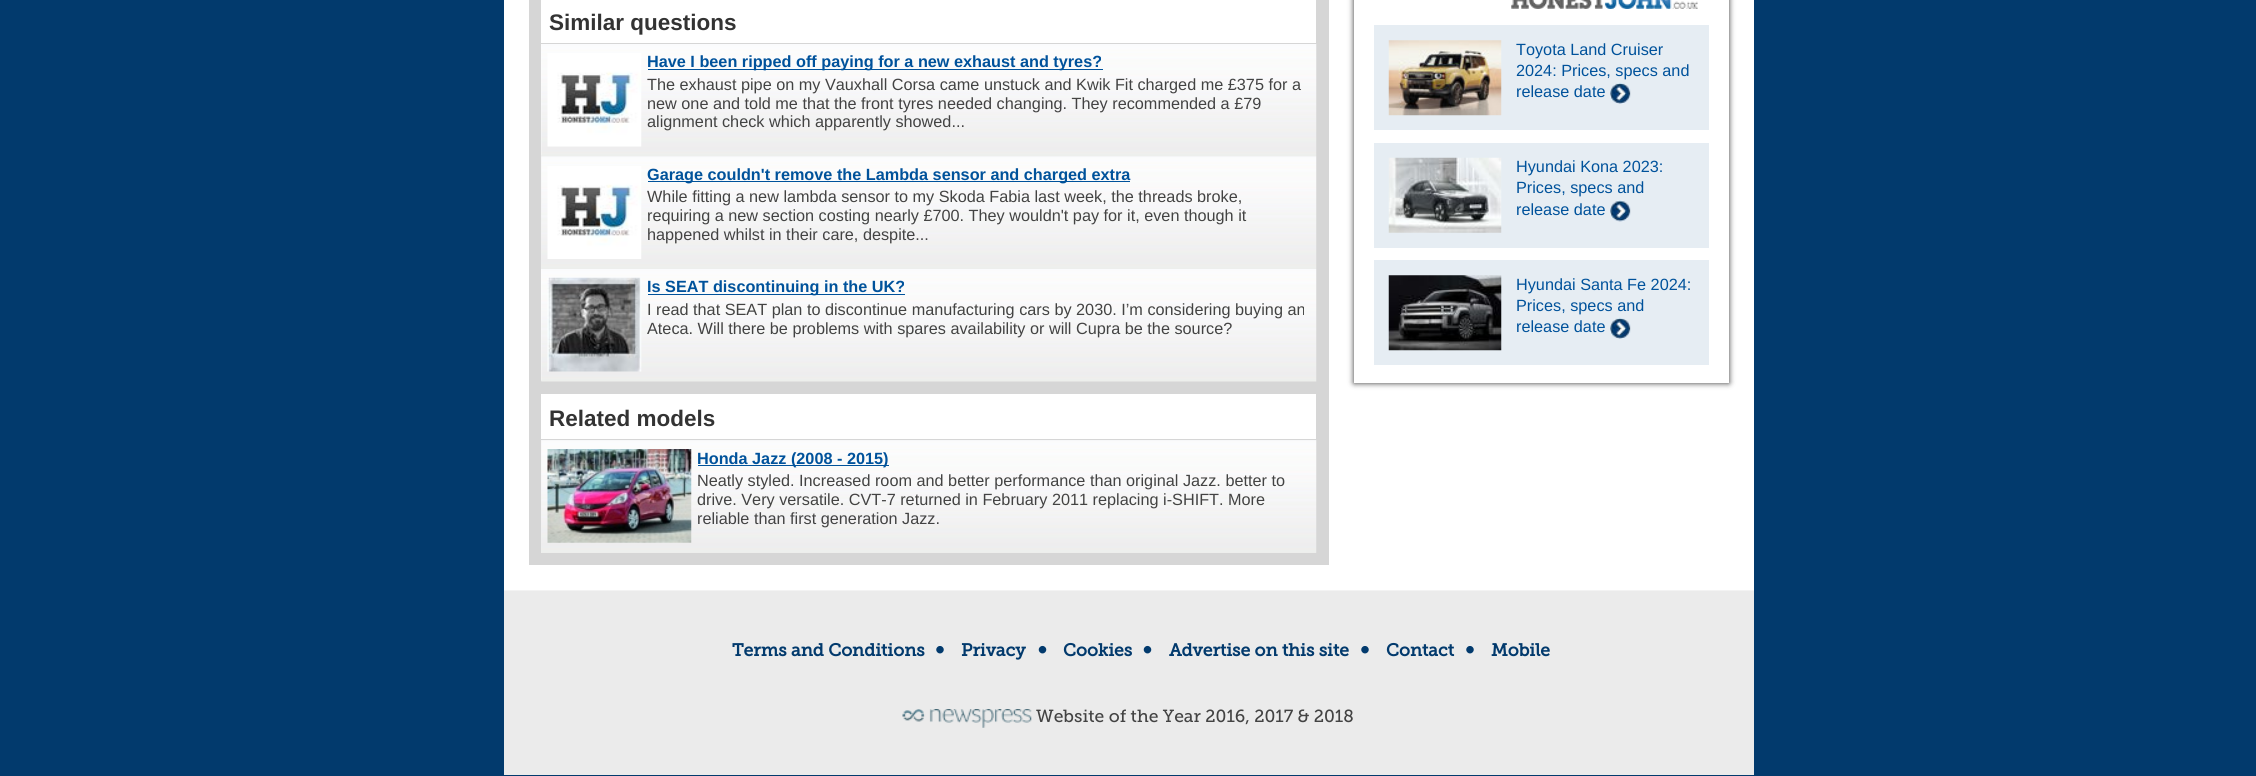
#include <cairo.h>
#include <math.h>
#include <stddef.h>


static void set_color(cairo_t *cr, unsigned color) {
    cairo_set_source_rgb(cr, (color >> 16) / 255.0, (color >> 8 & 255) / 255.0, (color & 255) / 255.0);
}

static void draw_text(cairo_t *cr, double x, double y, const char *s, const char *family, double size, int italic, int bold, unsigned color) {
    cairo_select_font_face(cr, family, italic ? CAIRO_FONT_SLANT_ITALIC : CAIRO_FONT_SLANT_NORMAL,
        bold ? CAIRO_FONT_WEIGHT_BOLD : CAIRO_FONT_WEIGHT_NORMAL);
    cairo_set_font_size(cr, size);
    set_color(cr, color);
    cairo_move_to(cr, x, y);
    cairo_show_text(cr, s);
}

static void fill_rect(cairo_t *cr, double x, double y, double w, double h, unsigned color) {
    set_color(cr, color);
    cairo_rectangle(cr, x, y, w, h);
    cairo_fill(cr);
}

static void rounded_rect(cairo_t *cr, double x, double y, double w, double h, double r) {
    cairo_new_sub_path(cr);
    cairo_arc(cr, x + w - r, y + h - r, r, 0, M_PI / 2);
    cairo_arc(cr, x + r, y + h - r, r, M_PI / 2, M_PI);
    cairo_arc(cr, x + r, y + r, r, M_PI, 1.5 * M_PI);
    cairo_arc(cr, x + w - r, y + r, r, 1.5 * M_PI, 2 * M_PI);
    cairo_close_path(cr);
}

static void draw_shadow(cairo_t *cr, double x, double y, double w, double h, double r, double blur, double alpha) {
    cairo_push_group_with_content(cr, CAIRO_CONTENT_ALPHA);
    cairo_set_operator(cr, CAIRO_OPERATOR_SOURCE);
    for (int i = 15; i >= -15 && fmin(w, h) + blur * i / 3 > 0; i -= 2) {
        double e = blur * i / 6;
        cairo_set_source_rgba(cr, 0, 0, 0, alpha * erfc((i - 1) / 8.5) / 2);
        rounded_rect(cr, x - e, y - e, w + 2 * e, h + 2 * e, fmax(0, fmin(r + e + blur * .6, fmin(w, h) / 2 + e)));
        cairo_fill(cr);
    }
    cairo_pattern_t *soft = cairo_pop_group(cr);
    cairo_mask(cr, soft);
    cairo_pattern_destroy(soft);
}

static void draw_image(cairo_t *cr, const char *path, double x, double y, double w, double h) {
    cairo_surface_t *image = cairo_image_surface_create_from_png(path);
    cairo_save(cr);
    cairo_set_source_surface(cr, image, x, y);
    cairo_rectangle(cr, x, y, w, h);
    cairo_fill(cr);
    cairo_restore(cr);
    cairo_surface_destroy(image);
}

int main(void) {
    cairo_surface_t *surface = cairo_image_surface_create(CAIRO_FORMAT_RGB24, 2256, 776);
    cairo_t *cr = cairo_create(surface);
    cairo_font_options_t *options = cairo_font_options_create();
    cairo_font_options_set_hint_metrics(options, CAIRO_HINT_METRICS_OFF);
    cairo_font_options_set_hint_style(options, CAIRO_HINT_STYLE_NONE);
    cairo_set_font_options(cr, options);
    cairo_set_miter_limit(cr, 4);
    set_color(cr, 0x023A6D);
    cairo_paint(cr);
    fill_rect(cr, 504, 0, 1250, 590, 0xFFFFFF);
    fill_rect(cr, 529, 0, 800, 565, 0xD6D6D6);
    fill_rect(cr, 541, 0, 775, 380, 0xFFFFFF);
    fill_rect(cr, 541, 43, 775, 1, 0xD6D6D6);
    draw_text(cr, 549, 30, "Similar questions", "Liberation Sans", 22.5, 0, 1, 0x333333);
    draw_image(cr, "assets/img1.png", 541, 44, 776, 113);
    fill_rect(cr, 541, 155, 1, 1, 0xEEEEEE);
    draw_image(cr, "assets/img2.png", 547, 53, 95, 94);
    fill_rect(cr, 648, 69, 455, 1, 0x00529B);
    draw_text(cr, 647, 67, "Have I been ripped off paying for a new exhaust and tyres?", "Liberation Sans", 16.25, 0, 1, 0x00529B);
    draw_text(cr, 647, 90, "The exhaust pipe on my Vauxhall Corsa came unstuck and Kwik Fit charged me £375 for a", "Liberation Sans", 16.25, 0, 0, 0x434343);
    draw_text(cr, 647, 109, "new one and told me that the front tyres needed changing. They recommended a £79", "Liberation Sans", 16.25, 0, 0, 0x434343);
    draw_text(cr, 647, 127, "alignment check which apparently showed...", "Liberation Sans", 16.25, 0, 0, 0x434343);
    fill_rect(cr, 541, 156, 775, 112, 0xEEEEEE);
    draw_image(cr, "assets/img3.png", 541, 156, 776, 113);
    fill_rect(cr, 541, 268, 1, 1, 0xEEEEEE);
    draw_image(cr, "assets/img4.png", 547, 166, 95, 93);
    fill_rect(cr, 648, 181, 482, 1, 0x00529B);
    draw_text(cr, 647, 180, "Garage couldn't remove the Lambda sensor and charged extra", "Liberation Sans", 16.25, 0, 1, 0x00529B);
    draw_text(cr, 647, 202, "While fitting a new lambda sensor to my Skoda Fabia last week, the threads broke,", "Liberation Sans", 16.25, 0, 0, 0x434343);
    draw_text(cr, 647, 221, "requiring a new section costing nearly £700. They wouldn't pay for it, even though it", "Liberation Sans", 16.25, 0, 0, 0x434343);
    draw_text(cr, 647, 240, "happened whilst in their care, despite...", "Liberation Sans", 16.25, 0, 0, 0x434343);
    draw_image(cr, "assets/img5.png", 541, 269, 776, 113);
    fill_rect(cr, 541, 380, 1, 1, 0xEEEEEE);
    draw_image(cr, "assets/img6.png", 547, 277, 95, 95);
    fill_rect(cr, 648, 294, 257, 1, 0x00529B);
    draw_text(cr, 647, 292, "Is SEAT discontinuing in the UK?", "Liberation Sans", 16.25, 0, 1, 0x00529B);
    draw_text(cr, 647, 315, "I read that SEAT plan to discontinue manufacturing cars by 2030. I’m considering buying an", "Liberation Sans", 16.25, 0, 0, 0x434343);
    draw_text(cr, 647, 334, "Ateca. Will there be problems with spares availability or will Cupra be the source?", "Liberation Sans", 16.25, 0, 0, 0x434343);
    fill_rect(cr, 541, 394, 775, 45, 0xFFFFFF);
    draw_text(cr, 549, 426, "Related models", "Liberation Sans", 22.5, 0, 1, 0x333333);
    fill_rect(cr, 541, 440, 775, 113, 0xEEEEEE);
    draw_image(cr, "assets/img7.png", 541, 440, 776, 113);
    draw_image(cr, "assets/img8.png", 547, 449, 145, 94);
    fill_rect(cr, 698, 465, 191, 1, 0x00529B);
    draw_text(cr, 697, 464, "Honda Jazz (2008 - 2015)", "Liberation Sans", 16.25, 0, 1, 0x00529B);
    draw_text(cr, 697, 486, "Neatly styled. Increased room and better performance than original Jazz. better to", "Liberation Sans", 16.25, 0, 0, 0x434343);
    draw_text(cr, 697, 505, "drive. Very versatile. CVT-7 returned in February 2011 replacing i-SHIFT. More", "Liberation Sans", 16.25, 0, 0, 0x434343);
    draw_text(cr, 697, 524, "reliable than first generation Jazz.", "Liberation Sans", 16.25, 0, 0, 0x434343);
    set_color(cr, 0x333333);
    draw_shadow(cr, 1354, -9, 375, 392, 0, 3, 1);
    fill_rect(cr, 1354, 0, 375, 383, 0xFFFFFF);
    draw_image(cr, "assets/img9.png", 1511, 0, 187, 9);
    fill_rect(cr, 1374, 25, 335, 105, 0xE6EDF3);
    draw_image(cr, "assets/img10.png", 1388, 40, 114, 76);
    draw_text(cr, 1516, 55, "Toyota Land Cruiser", "Liberation Sans", 16.25, 0, 0, 0x00529B);
    draw_text(cr, 1516, 76, "2024: Prices, specs and", "Liberation Sans", 16.25, 0, 0, 0x00529B);
    draw_text(cr, 1516, 97, "release date", "Liberation Sans", 16.25, 0, 0, 0x00529B);
    draw_image(cr, "assets/img11.png", 1610, 82, 21, 22);
    fill_rect(cr, 1374, 143, 335, 105, 0xE6EDF3);
    draw_image(cr, "assets/img12.png", 1388, 157, 114, 76);
    draw_text(cr, 1516, 172, "Hyundai Kona 2023:", "Liberation Sans", 16.25, 0, 0, 0x00529B);
    draw_text(cr, 1516, 193, "Prices, specs and", "Liberation Sans", 16.25, 0, 0, 0x00529B);
    draw_text(cr, 1516, 215, "release date", "Liberation Sans", 16.25, 0, 0, 0x00529B);
    draw_image(cr, "assets/img13.png", 1610, 200, 21, 22);
    fill_rect(cr, 1374, 260, 335, 105, 0xE6EDF3);
    draw_image(cr, "assets/img14.png", 1388, 275, 114, 76);
    draw_text(cr, 1516, 290, "Hyundai Santa Fe 2024:", "Liberation Sans", 16.25, 0, 0, 0x00529B);
    draw_text(cr, 1516, 311, "Prices, specs and", "Liberation Sans", 16.25, 0, 0, 0x00529B);
    draw_text(cr, 1516, 332, "release date", "Liberation Sans", 16.25, 0, 0, 0x00529B);
    draw_image(cr, "assets/img11.png", 1610, 317, 21, 22);
    fill_rect(cr, 504, 591, 1250, 184, 0xEBEBEB);
    fill_rect(cr, 504, 590, 1250, 1, 0xF3F3F3);
    draw_text(cr, 732, 656, "Terms and Conditions", "Museo Slab", 17.5, 0, 1, 0x023A6D);
    draw_image(cr, "assets/img15.png", 936, 646, 8, 8);
    draw_text(cr, 961, 656, "Privacy", "Museo Slab", 17.5, 0, 1, 0x023A6D);
    draw_image(cr, "assets/img16.png", 1038, 645, 9, 9);
    draw_text(cr, 1063, 656, "Cookies", "Museo Slab", 17.5, 0, 1, 0x023A6D);
    draw_image(cr, "assets/img16.png", 1143, 645, 9, 9);
    draw_text(cr, 1169, 656, "Advertise on this site", "Museo Slab", 17.5, 0, 1, 0x023A6D);
    draw_image(cr, "assets/img15.png", 1361, 646, 8, 8);
    draw_text(cr, 1386, 656, "Contact", "Museo Slab", 17.5, 0, 1, 0x023A6D);
    draw_image(cr, "assets/img15.png", 1466, 646, 8, 8);
    draw_text(cr, 1491, 656, "Mobile", "Museo Slab", 17.5, 0, 1, 0x023A6D);
    draw_image(cr, "assets/img17.png", 902, 709, 130, 19);
    draw_text(cr, 1036, 722, "Website of the Year 2016, 2017 & 2018", "Museo Slab", 17.5, 0, 0, 0x434343);
    cairo_surface_write_to_png(surface, "output.png");
    cairo_font_options_destroy(options);
    cairo_destroy(cr);
    cairo_surface_destroy(surface);
    return 0;
}
